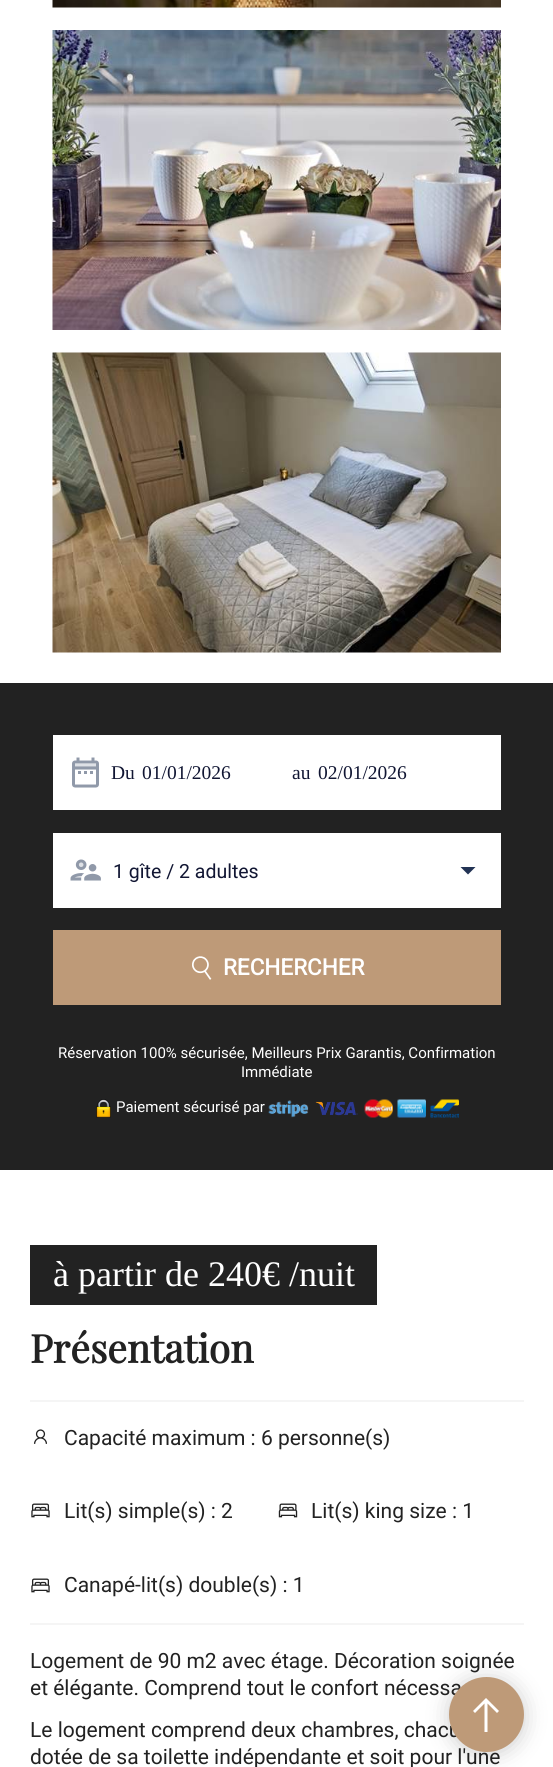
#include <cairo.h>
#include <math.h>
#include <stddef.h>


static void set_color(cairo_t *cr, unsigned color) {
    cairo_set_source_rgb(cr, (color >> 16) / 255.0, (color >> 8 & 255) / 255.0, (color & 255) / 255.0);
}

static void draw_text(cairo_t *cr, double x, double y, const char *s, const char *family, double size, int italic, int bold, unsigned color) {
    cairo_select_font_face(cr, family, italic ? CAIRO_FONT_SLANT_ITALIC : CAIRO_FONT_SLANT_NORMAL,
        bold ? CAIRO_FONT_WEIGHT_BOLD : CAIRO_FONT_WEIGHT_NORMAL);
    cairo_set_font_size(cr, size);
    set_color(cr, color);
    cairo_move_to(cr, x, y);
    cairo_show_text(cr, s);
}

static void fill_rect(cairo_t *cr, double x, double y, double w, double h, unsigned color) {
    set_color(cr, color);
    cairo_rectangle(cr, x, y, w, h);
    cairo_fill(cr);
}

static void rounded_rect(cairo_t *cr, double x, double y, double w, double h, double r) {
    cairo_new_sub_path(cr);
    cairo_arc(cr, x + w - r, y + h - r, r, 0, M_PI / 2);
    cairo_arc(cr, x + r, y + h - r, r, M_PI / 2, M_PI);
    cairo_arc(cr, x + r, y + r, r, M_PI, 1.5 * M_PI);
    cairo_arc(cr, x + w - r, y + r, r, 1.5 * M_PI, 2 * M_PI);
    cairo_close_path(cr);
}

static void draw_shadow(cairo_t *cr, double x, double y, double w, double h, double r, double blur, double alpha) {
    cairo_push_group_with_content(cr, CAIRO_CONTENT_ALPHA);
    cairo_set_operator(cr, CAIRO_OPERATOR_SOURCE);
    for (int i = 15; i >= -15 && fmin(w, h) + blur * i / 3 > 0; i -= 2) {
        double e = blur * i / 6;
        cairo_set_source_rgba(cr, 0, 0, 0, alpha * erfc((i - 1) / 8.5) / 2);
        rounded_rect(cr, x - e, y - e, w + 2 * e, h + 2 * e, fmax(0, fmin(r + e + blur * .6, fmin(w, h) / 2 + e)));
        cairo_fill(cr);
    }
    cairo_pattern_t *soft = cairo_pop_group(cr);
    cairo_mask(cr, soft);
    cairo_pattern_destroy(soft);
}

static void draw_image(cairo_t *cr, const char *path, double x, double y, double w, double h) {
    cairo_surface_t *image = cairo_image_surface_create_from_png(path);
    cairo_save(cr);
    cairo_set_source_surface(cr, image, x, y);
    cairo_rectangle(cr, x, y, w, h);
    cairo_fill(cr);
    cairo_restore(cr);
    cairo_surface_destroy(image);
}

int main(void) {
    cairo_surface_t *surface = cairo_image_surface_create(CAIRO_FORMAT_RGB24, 553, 1767);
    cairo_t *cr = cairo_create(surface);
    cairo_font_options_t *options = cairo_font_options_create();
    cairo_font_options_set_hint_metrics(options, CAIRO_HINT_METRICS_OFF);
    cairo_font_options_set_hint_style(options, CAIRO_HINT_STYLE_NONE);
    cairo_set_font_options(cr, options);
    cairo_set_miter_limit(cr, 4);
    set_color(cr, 0xFFFFFF);
    cairo_paint(cr);
    draw_image(cr, "assets/img1.png", 52, 0, 449, 8);
    draw_image(cr, "assets/img2.png", 52, 30, 449, 300);
    draw_image(cr, "assets/img3.png", 52, 352, 449, 301);
    fill_rect(cr, 0, 683, 553, 487, 0x222222);
    fill_rect(cr, 53, 735, 448, 75, 0xFFFFFF);
    draw_image(cr, "assets/img4.png", 72, 757, 27, 31);
    draw_text(cr, 111, 779, "Du", "Liberation Serif", 19.5, 0, 0, 0x111633);
    draw_text(cr, 142, 779, "01/01/2026", "Liberation Serif", 19.5, 0, 0, 0x111633);
    draw_text(cr, 292, 779, "au", "Liberation Serif", 19.5, 0, 0, 0x111633);
    draw_text(cr, 318, 779, "02/01/2026", "Liberation Serif", 19.5, 0, 0, 0x111633);
    fill_rect(cr, 53, 833, 448, 75, 0xFFFFFF);
    draw_image(cr, "assets/img5.png", 70, 859, 31, 22);
    draw_text(cr, 113, 878, "1 gîte / 2 adultes", "Roboto", 19.5, 0, 0, 0x111633);
    set_color(cr, 0x223354);
    cairo_new_path(cr);
    cairo_move_to(cr, 460.5, 867);
    cairo_line_to(cr, 468, 874.5);
    cairo_line_to(cr, 475.5, 867);
    cairo_close_path(cr);
    cairo_fill(cr);
    fill_rect(cr, 53, 930, 448, 75, 0xBE9A78);
    draw_image(cr, "assets/img6.png", 192, 956, 20, 24);
    draw_text(cr, 223, 975, "RECHERCHER", "Roboto", 22.5, 0, 1, 0xFFFFFF);
    draw_text(cr, 58, 1058, "Réservation 100% sécurisée, Meilleurs Prix Garantis, Confirmation", "Roboto", 15, 0, 0, 0xFFFFFF);
    draw_text(cr, 241, 1077, "Immédiate", "Roboto", 15, 0, 0, 0xFFFFFF);
    draw_image(cr, "assets/img7.png", 96, 1099, 15, 19);
    draw_text(cr, 116, 1112, "Paiement sécurisé par", "Roboto", 15, 0, 0, 0xFFFFFF);
    draw_image(cr, "assets/img8.png", 268, 1100, 41, 18);
    draw_image(cr, "assets/img9.png", 315, 1101, 43, 15);
    draw_image(cr, "assets/img10.png", 364, 1099, 29, 19);
    draw_image(cr, "assets/img11.png", 397, 1099, 29, 19);
    draw_image(cr, "assets/img12.png", 430, 1099, 29, 19);
    fill_rect(cr, 30, 1245, 347, 60, 0x222222);
    draw_text(cr, 53, 1286, "à partir de 240€ /nuit", "Liberation Serif", 36, 0, 0, 0xFFFFFF);
    draw_text(cr, 30, 1363, "Présentation", "Playfair Display", 39, 0, 1, 0x222222);
    fill_rect(cr, 30, 1400, 494, 2, 0xF5F5F5);
    fill_rect(cr, 30, 1623, 494, 2, 0xF5F5F5);
    draw_image(cr, "assets/img13.png", 33, 1429, 14, 15);
    draw_text(cr, 64, 1445, "Capacité maximum : 6 personne(s)", "Roboto", 21, 0, 0, 0x222222);
    draw_image(cr, "assets/img14.png", 31, 1503, 19, 15);
    draw_text(cr, 64, 1518, "Lit(s) simple(s) : 2", "Roboto", 21, 0, 0, 0x222222);
    draw_image(cr, "assets/img15.png", 278, 1503, 20, 15);
    draw_text(cr, 311, 1518, "Lit(s) king size : 1", "Roboto", 21, 0, 0, 0x222222);
    draw_image(cr, "assets/img14.png", 31, 1578, 19, 15);
    draw_text(cr, 64, 1592, "Canapé-lit(s) double(s) : 1", "Roboto", 21, 0, 0, 0x222222);
    draw_text(cr, 30, 1668, "Logement de 90 m2 avec étage. Décoration soignée", "Roboto", 21, 0, 0, 0x222222);
    draw_text(cr, 30, 1695, "et élégante. Comprend tout le confort nécessa", "Roboto", 21, 0, 0, 0x222222);
    draw_text(cr, 30, 1737, "Le logement comprend deux chambres, chacu", "Roboto", 21, 0, 0, 0x222222);
    draw_text(cr, 30, 1764, "dotée de sa toilette indépendante et soit pour l'une", "Roboto", 21, 0, 0, 0x222222);
    set_color(cr, 0x000000);
    draw_shadow(cr, 449, 1679, 75, 75, 37.5, 11, 0.2);
    set_color(cr, 0xBE9A78);
    cairo_arc(cr, 486.5, 1714.5, 37.5, 0, 2 * M_PI);
    cairo_fill(cr);
    set_color(cr, 0xFFFFFF);
    cairo_new_path(cr);
    cairo_move_to(cr, 487.5, 1732);
    cairo_line_to(cr, 487.5, 1703.5);
    cairo_line_to(cr, 497, 1713);
    cairo_line_to(cr, 499, 1711);
    cairo_line_to(cr, 486, 1698);
    cairo_line_to(cr, 473, 1711);
    cairo_line_to(cr, 475, 1713);
    cairo_line_to(cr, 484.5, 1703.5);
    cairo_line_to(cr, 484.5, 1732);
    cairo_close_path(cr);
    cairo_fill(cr);
    cairo_surface_write_to_png(surface, "output.png");
    cairo_font_options_destroy(options);
    cairo_destroy(cr);
    cairo_surface_destroy(surface);
    return 0;
}
